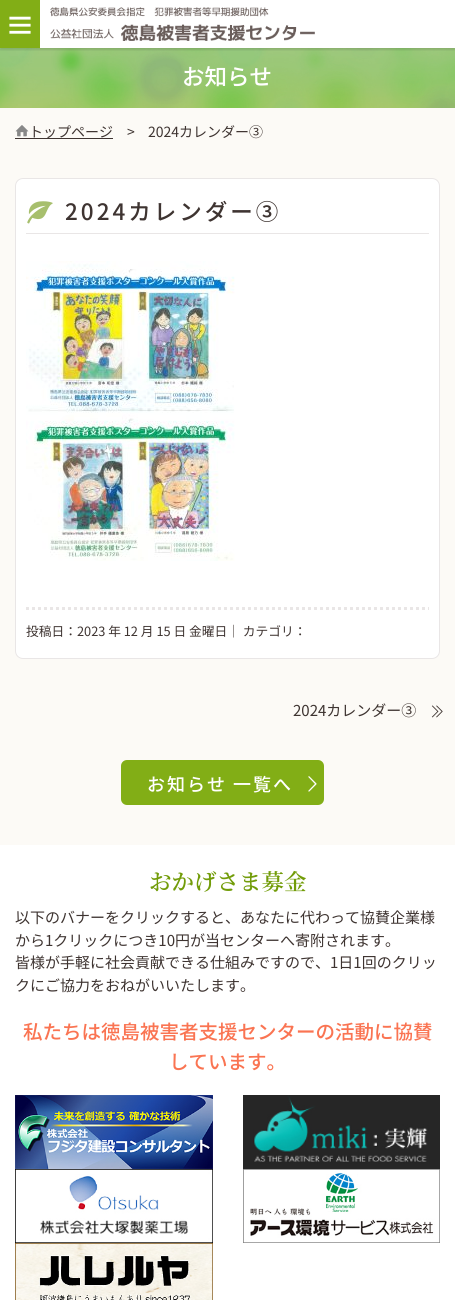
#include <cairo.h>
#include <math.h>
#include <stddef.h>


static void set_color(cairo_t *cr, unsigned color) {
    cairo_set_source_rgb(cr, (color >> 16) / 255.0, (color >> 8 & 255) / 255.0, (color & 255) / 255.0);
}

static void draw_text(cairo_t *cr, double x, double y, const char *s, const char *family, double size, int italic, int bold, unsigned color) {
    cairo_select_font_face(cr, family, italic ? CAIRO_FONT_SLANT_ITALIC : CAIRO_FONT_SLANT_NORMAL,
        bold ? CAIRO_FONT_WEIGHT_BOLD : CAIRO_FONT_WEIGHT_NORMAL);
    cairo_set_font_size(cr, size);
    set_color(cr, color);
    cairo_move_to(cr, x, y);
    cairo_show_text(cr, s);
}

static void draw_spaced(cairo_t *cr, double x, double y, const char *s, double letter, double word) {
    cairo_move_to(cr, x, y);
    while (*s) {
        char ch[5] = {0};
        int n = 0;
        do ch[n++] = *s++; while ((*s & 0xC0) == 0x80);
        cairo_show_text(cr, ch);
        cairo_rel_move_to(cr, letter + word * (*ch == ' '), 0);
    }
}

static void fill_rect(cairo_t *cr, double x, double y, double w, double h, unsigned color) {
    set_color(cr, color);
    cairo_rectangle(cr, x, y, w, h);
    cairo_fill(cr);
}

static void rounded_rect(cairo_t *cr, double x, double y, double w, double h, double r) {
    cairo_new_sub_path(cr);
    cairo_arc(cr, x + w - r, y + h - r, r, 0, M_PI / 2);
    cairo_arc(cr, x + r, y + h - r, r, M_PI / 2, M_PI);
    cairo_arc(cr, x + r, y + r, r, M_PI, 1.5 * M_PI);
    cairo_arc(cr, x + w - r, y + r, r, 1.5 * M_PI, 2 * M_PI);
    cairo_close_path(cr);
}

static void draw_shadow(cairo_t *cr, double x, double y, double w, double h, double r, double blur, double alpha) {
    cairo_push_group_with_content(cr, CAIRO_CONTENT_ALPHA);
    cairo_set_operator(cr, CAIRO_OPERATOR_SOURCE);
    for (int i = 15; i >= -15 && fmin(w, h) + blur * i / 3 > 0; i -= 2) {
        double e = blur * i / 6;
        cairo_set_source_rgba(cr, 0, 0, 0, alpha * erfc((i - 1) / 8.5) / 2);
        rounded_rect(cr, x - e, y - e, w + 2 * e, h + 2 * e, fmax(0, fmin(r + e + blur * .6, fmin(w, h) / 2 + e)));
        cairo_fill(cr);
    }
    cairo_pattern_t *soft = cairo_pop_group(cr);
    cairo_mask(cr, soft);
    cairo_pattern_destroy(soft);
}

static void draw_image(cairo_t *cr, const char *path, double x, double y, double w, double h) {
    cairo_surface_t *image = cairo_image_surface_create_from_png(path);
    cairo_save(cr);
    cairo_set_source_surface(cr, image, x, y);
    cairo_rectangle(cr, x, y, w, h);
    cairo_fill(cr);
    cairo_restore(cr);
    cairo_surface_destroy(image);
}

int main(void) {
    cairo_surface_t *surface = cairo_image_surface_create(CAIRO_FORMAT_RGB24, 455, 1300);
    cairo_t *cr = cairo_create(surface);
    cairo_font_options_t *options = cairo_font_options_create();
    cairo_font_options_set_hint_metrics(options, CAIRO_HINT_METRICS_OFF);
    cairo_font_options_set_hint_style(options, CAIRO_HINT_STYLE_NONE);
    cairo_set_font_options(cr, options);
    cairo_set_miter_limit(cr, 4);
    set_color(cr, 0xFFFFFF);
    cairo_paint(cr);
    draw_image(cr, "assets/img3.png", 0, 48, 455, 60);
    cairo_save(cr);
    cairo_rectangle(cr, 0, 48, 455, 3);
    cairo_clip(cr);
    set_color(cr, 0x000000);
    draw_shadow(cr, 0, 2, 455, 48, 0, 1, 0.12);
    cairo_restore(cr);
    fill_rect(cr, 0, 0, 40, 48, 0x82AE16);
    draw_image(cr, "assets/img1.png", 9, 16, 22, 18);
    draw_image(cr, "assets/img2.png", 50, 7, 265, 34);
    draw_text(cr, 182, 85, "お知らせ", "Noto Sans JP Medium", 22.5, 0, 0, 0xFFFFFF);
    fill_rect(cr, 0, 108, 455, 737, 0xFCFAF6);
    draw_image(cr, "assets/img4.png", 15, 125, 14, 12);
    draw_text(cr, 29, 137, "トップページ", "Noto Sans JP", 14, 0, 0, 0x3E3431);
    fill_rect(cr, 15, 138, 98, 1, 0x3E3431);
    draw_text(cr, 127, 137, ">", "Noto Sans JP", 14, 0, 0, 0x3E3431);
    draw_text(cr, 148, 137, "2024カレンダー③", "Noto Sans JP", 14, 0, 0, 0x3E3431);
    set_color(cr, 0xFFFFFF);
    rounded_rect(cr, 15.5, 178.5, 424, 480, 7.5);
    cairo_fill_preserve(cr);
    set_color(cr, 0xE9E6E6);
    cairo_set_line_width(cr, 1);
    cairo_stroke(cr);
    fill_rect(cr, 26, 233, 403, 1, 0xE9E6E6);
    draw_image(cr, "assets/img5.png", 27, 201, 26, 23);
    cairo_select_font_face(cr, "Noto Sans JP Medium", CAIRO_FONT_SLANT_NORMAL, CAIRO_FONT_WEIGHT_NORMAL);
    cairo_set_font_size(cr, 22.5);
    set_color(cr, 0x3E3431);
    draw_spaced(cr, 65, 220, "2024カレンダー③", 3, 0);
    draw_image(cr, "assets/img6.png", 26, 261, 209, 300);
    cairo_new_path(cr);
    cairo_move_to(cr, 26, 608.5);
    cairo_line_to(cr, 429, 608.5);
    set_color(cr, 0xE9E6E6);
    cairo_set_line_width(cr, 3);
    cairo_set_dash(cr, (double[]){3, 3}, 2, 0);
    cairo_stroke(cr);
    draw_text(cr, 26, 636, "投稿日：2023 年 12 月 15 日 金曜日｜ カテゴリ：", "Noto Sans JP", 12.75, 0, 0, 0x3E3431);
    draw_text(cr, 293, 716, "2024カレンダー③", "Noto Sans JP", 15, 0, 0, 0x3E3431);
    draw_image(cr, "assets/img7.png", 431, 705, 12, 13);
    set_color(cr, 0x82AE16);
    rounded_rect(cr, 121, 760, 203, 45, 6);
    cairo_fill(cr);
    cairo_select_font_face(cr, "Noto Sans JP Medium", CAIRO_FONT_SLANT_NORMAL, CAIRO_FONT_WEIGHT_NORMAL);
    cairo_set_font_size(cr, 18);
    set_color(cr, 0xFFFFFF);
    draw_spaced(cr, 147, 791, "お知らせ 一覧へ", 2, 0);
    draw_image(cr, "assets/img8.png", 308, 776, 9, 16);
    draw_text(cr, 149, 890, "おかげさま募金", "Noto Serif JP SemiBold", 22.5, 0, 0, 0x729C09);
    draw_text(cr, 15, 923, "以下のバナーをクリックすると、あなたに代わって協賛企業様", "Noto Sans JP", 15, 0, 0, 0x3E3431);
    draw_text(cr, 15, 946, "から1クリックにつき10円が当センターへ寄附されます。", "Noto Sans JP", 15, 0, 0, 0x3E3431);
    draw_text(cr, 15, 968, "皆様が手軽に社会貢献できる仕組みですので、1日1回のクリッ", "Noto Sans JP", 15, 0, 0, 0x3E3431);
    draw_text(cr, 15, 991, "クにご協力をおねがいいたします。", "Noto Sans JP", 15, 0, 0, 0x3E3431);
    draw_text(cr, 23, 1039, "私たちは徳島被害者支援センターの活動に協賛", "Noto Sans JP Medium", 19.5, 0, 0, 0xFA7452);
    draw_text(cr, 169, 1069, "しています。", "Noto Sans JP Medium", 19.5, 0, 0, 0xFA7452);
    draw_image(cr, "assets/img9.png", 15, 1095, 198, 74);
    draw_image(cr, "assets/img10.png", 243, 1095, 197, 74);
    draw_image(cr, "assets/img11.png", 15, 1169, 198, 74);
    draw_image(cr, "assets/img12.png", 243, 1169, 197, 74);
    draw_image(cr, "assets/img13.png", 15, 1243, 198, 57);
    cairo_surface_write_to_png(surface, "output.png");
    cairo_font_options_destroy(options);
    cairo_destroy(cr);
    cairo_surface_destroy(surface);
    return 0;
}
